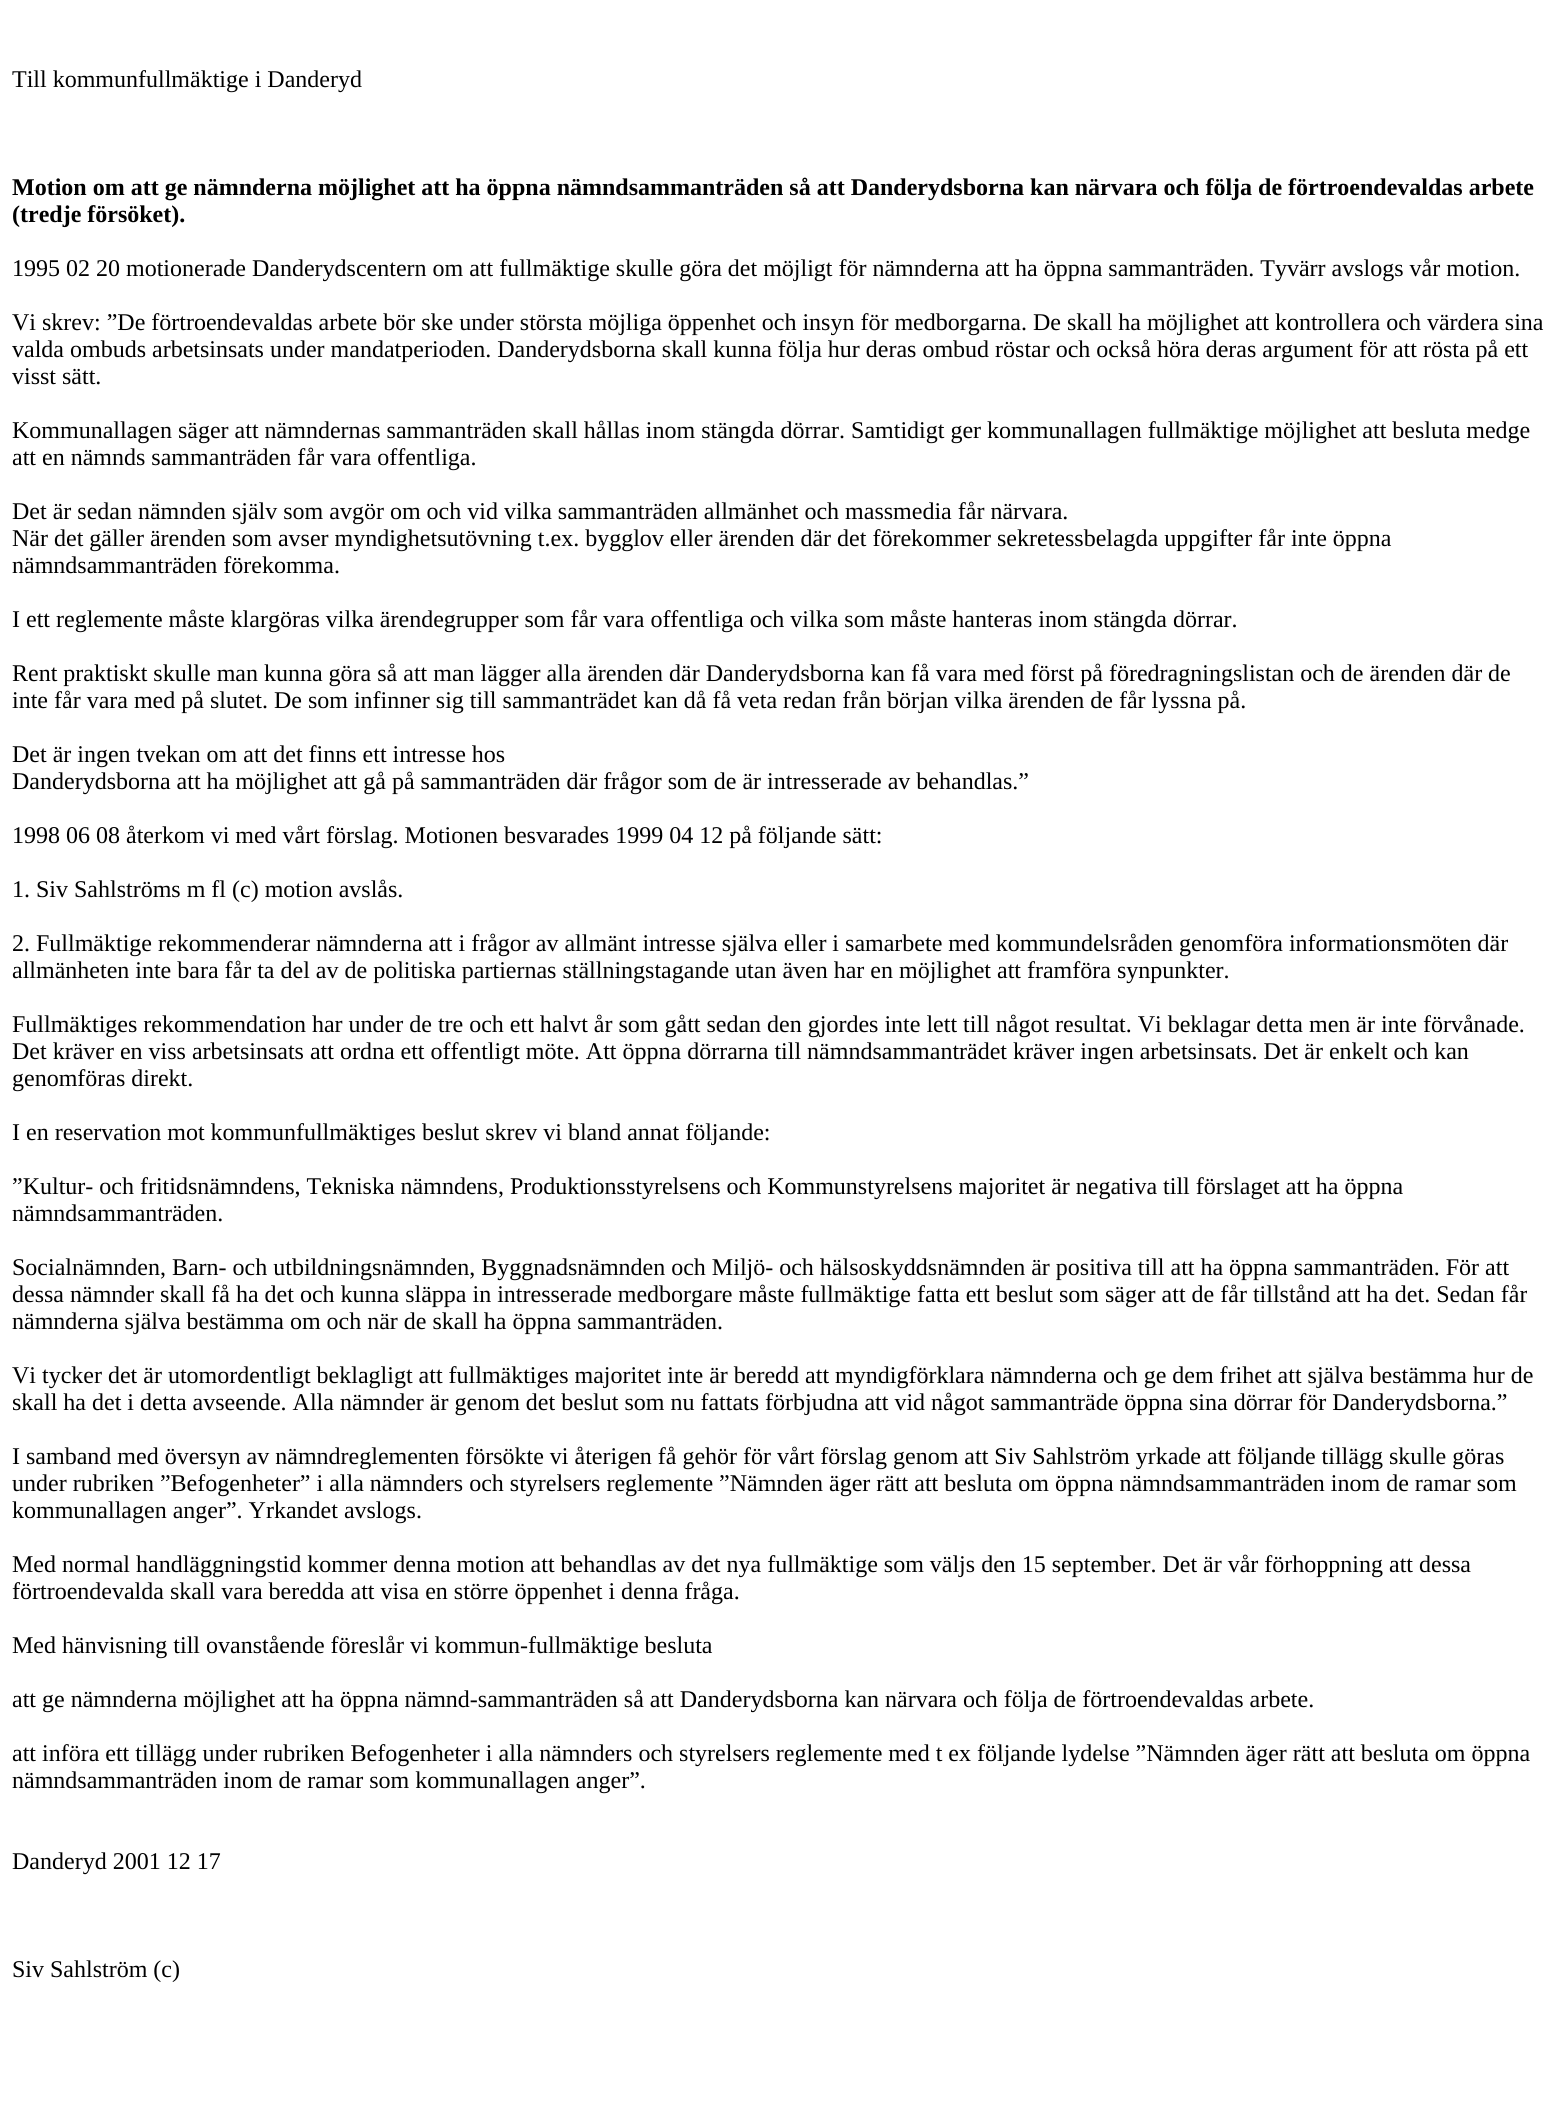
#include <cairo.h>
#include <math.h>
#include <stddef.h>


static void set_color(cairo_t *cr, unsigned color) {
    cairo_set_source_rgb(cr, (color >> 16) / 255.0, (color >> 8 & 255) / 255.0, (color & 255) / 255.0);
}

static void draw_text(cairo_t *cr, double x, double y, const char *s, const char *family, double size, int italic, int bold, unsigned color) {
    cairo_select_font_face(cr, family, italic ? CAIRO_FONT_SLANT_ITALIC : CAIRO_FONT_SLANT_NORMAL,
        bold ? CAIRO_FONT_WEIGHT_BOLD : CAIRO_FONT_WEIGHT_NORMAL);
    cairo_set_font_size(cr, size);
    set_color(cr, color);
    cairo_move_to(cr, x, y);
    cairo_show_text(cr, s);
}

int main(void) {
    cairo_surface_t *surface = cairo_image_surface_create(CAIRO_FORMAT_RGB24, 1556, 2118);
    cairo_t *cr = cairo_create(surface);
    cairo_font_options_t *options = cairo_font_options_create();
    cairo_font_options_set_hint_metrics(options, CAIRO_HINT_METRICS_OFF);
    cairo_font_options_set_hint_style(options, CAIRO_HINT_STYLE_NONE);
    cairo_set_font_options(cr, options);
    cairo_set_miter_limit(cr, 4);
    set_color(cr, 0xFFFFFF);
    cairo_paint(cr);
    draw_text(cr, 12, 87, "Till kommunfullmäktige i Danderyd", "Liberation Serif", 24, 0, 0, 0x000000);
    draw_text(cr, 12, 195, "Motion om att ge nämnderna möjlighet att ha öppna nämndsammanträden så att Danderydsborna kan närvara och följa de förtroendevaldas arbete", "Liberation Serif", 24, 0, 1, 0x000000);
    draw_text(cr, 12, 222, "(tredje försöket).", "Liberation Serif", 24, 0, 1, 0x000000);
    draw_text(cr, 12, 276, "1995 02 20 motionerade Danderydscentern om att fullmäktige skulle göra det möjligt för nämnderna att ha öppna sammanträden. Tyvärr avslogs vår motion.", "Liberation Serif", 24, 0, 0, 0x000000);
    draw_text(cr, 12, 330, "Vi skrev: ”De förtroendevaldas arbete bör ske under största möjliga öppenhet och insyn för medborgarna. De skall ha möjlighet att kontrollera och värdera sina", "Liberation Serif", 24, 0, 0, 0x000000);
    draw_text(cr, 12, 357, "valda ombuds arbetsinsats under mandatperioden. Danderydsborna skall kunna följa hur deras ombud röstar och också höra deras argument för att rösta på ett", "Liberation Serif", 24, 0, 0, 0x000000);
    draw_text(cr, 12, 384, "visst sätt.", "Liberation Serif", 24, 0, 0, 0x000000);
    draw_text(cr, 12, 438, "Kommunallagen säger att nämndernas sammanträden skall hållas inom stängda dörrar. Samtidigt ger kommunallagen fullmäktige möjlighet att besluta medge", "Liberation Serif", 24, 0, 0, 0x000000);
    draw_text(cr, 12, 465, "att en nämnds sammanträden får vara offentliga.", "Liberation Serif", 24, 0, 0, 0x000000);
    draw_text(cr, 12, 519, "Det är sedan nämnden själv som avgör om och vid vilka sammanträden allmänhet och massmedia får närvara.", "Liberation Serif", 24, 0, 0, 0x000000);
    draw_text(cr, 12, 546, "När det gäller ärenden som avser myndighetsutövning t.ex. bygglov eller ärenden där det förekommer sekretessbelagda uppgifter får inte öppna", "Liberation Serif", 24, 0, 0, 0x000000);
    draw_text(cr, 12, 573, "nämndsammanträden förekomma.", "Liberation Serif", 24, 0, 0, 0x000000);
    draw_text(cr, 12, 627, "I ett reglemente måste klargöras vilka ärendegrupper som får vara offentliga och vilka som måste hanteras inom stängda dörrar.", "Liberation Serif", 24, 0, 0, 0x000000);
    draw_text(cr, 12, 681, "Rent praktiskt skulle man kunna göra så att man lägger alla ärenden där Danderydsborna kan få vara med först på föredragningslistan och de ärenden där de", "Liberation Serif", 24, 0, 0, 0x000000);
    draw_text(cr, 12, 708, "inte får vara med på slutet. De som infinner sig till sammanträdet kan då få veta redan från början vilka ärenden de får lyssna på.", "Liberation Serif", 24, 0, 0, 0x000000);
    draw_text(cr, 12, 762, "Det är ingen tvekan om att det finns ett intresse hos", "Liberation Serif", 24, 0, 0, 0x000000);
    draw_text(cr, 12, 789, "Danderydsborna att ha möjlighet att gå på sammanträden där frågor som de är intresserade av behandlas.”", "Liberation Serif", 24, 0, 0, 0x000000);
    draw_text(cr, 12, 843, "1998 06 08 återkom vi med vårt förslag. Motionen besvarades 1999 04 12 på följande sätt:", "Liberation Serif", 24, 0, 0, 0x000000);
    draw_text(cr, 12, 897, "1. Siv Sahlströms m fl (c) motion avslås.", "Liberation Serif", 24, 0, 0, 0x000000);
    draw_text(cr, 12, 951, "2. Fullmäktige rekommenderar nämnderna att i frågor av allmänt intresse själva eller i samarbete med kommundelsråden genomföra informationsmöten där", "Liberation Serif", 24, 0, 0, 0x000000);
    draw_text(cr, 12, 978, "allmänheten inte bara får ta del av de politiska partiernas ställningstagande utan även har en möjlighet att framföra synpunkter.", "Liberation Serif", 24, 0, 0, 0x000000);
    draw_text(cr, 12, 1032, "Fullmäktiges rekommendation har under de tre och ett halvt år som gått sedan den gjordes inte lett till något resultat. Vi beklagar detta men är inte förvånade.", "Liberation Serif", 24, 0, 0, 0x000000);
    draw_text(cr, 12, 1059, "Det kräver en viss arbetsinsats att ordna ett offentligt möte. Att öppna dörrarna till nämndsammanträdet kräver ingen arbetsinsats. Det är enkelt och kan", "Liberation Serif", 24, 0, 0, 0x000000);
    draw_text(cr, 12, 1086, "genomföras direkt.", "Liberation Serif", 24, 0, 0, 0x000000);
    draw_text(cr, 12, 1140, "I en reservation mot kommunfullmäktiges beslut skrev vi bland annat följande:", "Liberation Serif", 24, 0, 0, 0x000000);
    draw_text(cr, 12, 1194, "”Kultur- och fritidsnämndens, Tekniska nämndens, Produktionsstyrelsens och Kommunstyrelsens majoritet är negativa till förslaget att ha öppna", "Liberation Serif", 24, 0, 0, 0x000000);
    draw_text(cr, 12, 1221, "nämndsammanträden.", "Liberation Serif", 24, 0, 0, 0x000000);
    draw_text(cr, 12, 1275, "Socialnämnden, Barn- och utbildningsnämnden, Byggnadsnämnden och Miljö- och hälsoskyddsnämnden är positiva till att ha öppna sammanträden. För att", "Liberation Serif", 24, 0, 0, 0x000000);
    draw_text(cr, 12, 1302, "dessa nämnder skall få ha det och kunna släppa in intresserade medborgare måste fullmäktige fatta ett beslut som säger att de får tillstånd att ha det. Sedan får", "Liberation Serif", 24, 0, 0, 0x000000);
    draw_text(cr, 12, 1329, "nämnderna själva bestämma om och när de skall ha öppna sammanträden.", "Liberation Serif", 24, 0, 0, 0x000000);
    draw_text(cr, 12, 1383, "Vi tycker det är utomordentligt beklagligt att fullmäktiges majoritet inte är beredd att myndigförklara nämnderna och ge dem frihet att själva bestämma hur de", "Liberation Serif", 24, 0, 0, 0x000000);
    draw_text(cr, 12, 1410, "skall ha det i detta avseende. Alla nämnder är genom det beslut som nu fattats förbjudna att vid något sammanträde öppna sina dörrar för Danderydsborna.”", "Liberation Serif", 24, 0, 0, 0x000000);
    draw_text(cr, 12, 1464, "I samband med översyn av nämndreglementen försökte vi återigen få gehör för vårt förslag genom att Siv Sahlström yrkade att följande tillägg skulle göras", "Liberation Serif", 24, 0, 0, 0x000000);
    draw_text(cr, 12, 1491, "under rubriken ”Befogenheter” i alla nämnders och styrelsers reglemente ”Nämnden äger rätt att besluta om öppna nämndsammanträden inom de ramar som", "Liberation Serif", 24, 0, 0, 0x000000);
    draw_text(cr, 12, 1518, "kommunallagen anger”. Yrkandet avslogs.", "Liberation Serif", 24, 0, 0, 0x000000);
    draw_text(cr, 12, 1572, "Med normal handläggningstid kommer denna motion att behandlas av det nya fullmäktige som väljs den 15 september. Det är vår förhoppning att dessa", "Liberation Serif", 24, 0, 0, 0x000000);
    draw_text(cr, 12, 1599, "förtroendevalda skall vara beredda att visa en större öppenhet i denna fråga.", "Liberation Serif", 24, 0, 0, 0x000000);
    draw_text(cr, 12, 1653, "Med hänvisning till ovanstående föreslår vi kommun-fullmäktige besluta", "Liberation Serif", 24, 0, 0, 0x000000);
    draw_text(cr, 12, 1707, "att ge nämnderna möjlighet att ha öppna nämnd-sammanträden så att Danderydsborna kan närvara och följa de förtroendevaldas arbete.", "Liberation Serif", 24, 0, 0, 0x000000);
    draw_text(cr, 12, 1761, "att införa ett tillägg under rubriken Befogenheter i alla nämnders och styrelsers reglemente med t ex följande lydelse ”Nämnden äger rätt att besluta om öppna", "Liberation Serif", 24, 0, 0, 0x000000);
    draw_text(cr, 12, 1788, "nämndsammanträden inom de ramar som kommunallagen anger”.", "Liberation Serif", 24, 0, 0, 0x000000);
    draw_text(cr, 12, 1869, "Danderyd 2001 12 17", "Liberation Serif", 24, 0, 0, 0x000000);
    draw_text(cr, 12, 1977, "Siv Sahlström (c)", "Liberation Serif", 24, 0, 0, 0x000000);
    cairo_surface_write_to_png(surface, "output.png");
    cairo_font_options_destroy(options);
    cairo_destroy(cr);
    cairo_surface_destroy(surface);
    return 0;
}
